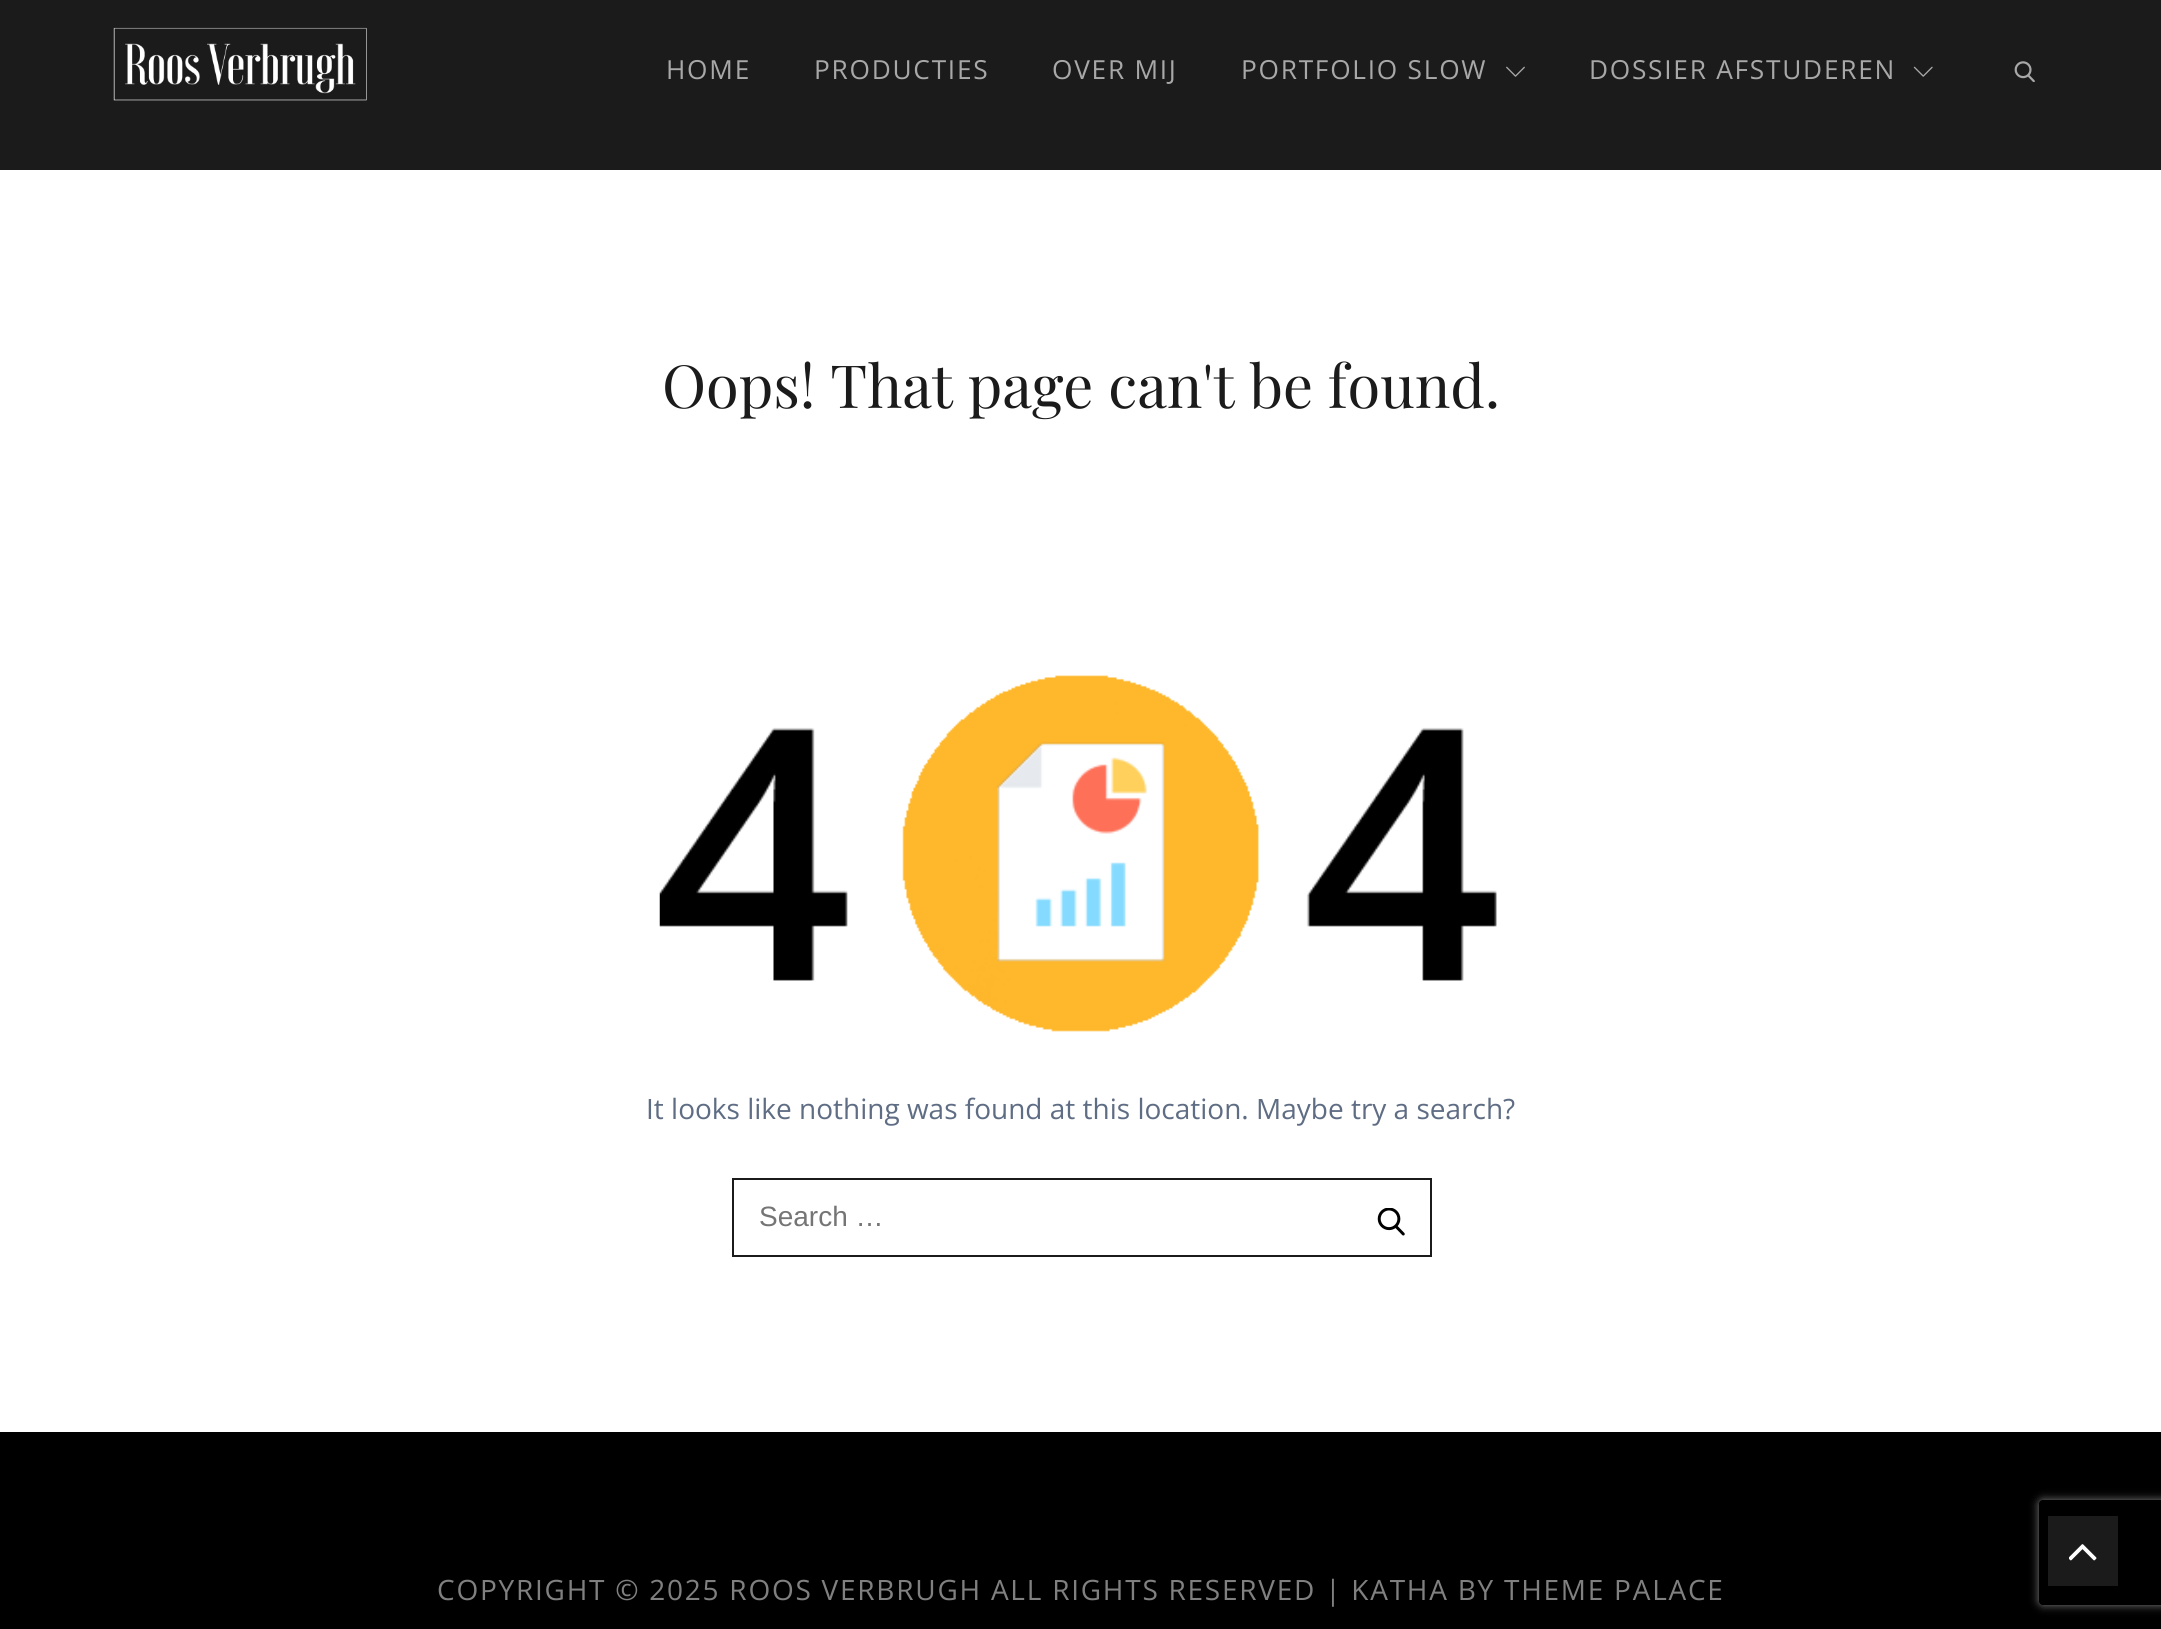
#include <cairo.h>
#include <math.h>
#include <stddef.h>


static void set_color(cairo_t *cr, unsigned color) {
    cairo_set_source_rgb(cr, (color >> 16) / 255.0, (color >> 8 & 255) / 255.0, (color & 255) / 255.0);
}

static void draw_text(cairo_t *cr, double x, double y, const char *s, const char *family, double size, int italic, int bold, unsigned color) {
    cairo_select_font_face(cr, family, italic ? CAIRO_FONT_SLANT_ITALIC : CAIRO_FONT_SLANT_NORMAL,
        bold ? CAIRO_FONT_WEIGHT_BOLD : CAIRO_FONT_WEIGHT_NORMAL);
    cairo_set_font_size(cr, size);
    set_color(cr, color);
    cairo_move_to(cr, x, y);
    cairo_show_text(cr, s);
}

static void draw_spaced(cairo_t *cr, double x, double y, const char *s, double letter, double word) {
    cairo_move_to(cr, x, y);
    while (*s) {
        char ch[5] = {0};
        int n = 0;
        do ch[n++] = *s++; while ((*s & 0xC0) == 0x80);
        cairo_show_text(cr, ch);
        cairo_rel_move_to(cr, letter + word * (*ch == ' '), 0);
    }
}

static void fill_rect(cairo_t *cr, double x, double y, double w, double h, unsigned color) {
    set_color(cr, color);
    cairo_rectangle(cr, x, y, w, h);
    cairo_fill(cr);
}

static void rounded_rect(cairo_t *cr, double x, double y, double w, double h, double r) {
    cairo_new_sub_path(cr);
    cairo_arc(cr, x + w - r, y + h - r, r, 0, M_PI / 2);
    cairo_arc(cr, x + r, y + h - r, r, M_PI / 2, M_PI);
    cairo_arc(cr, x + r, y + r, r, M_PI, 1.5 * M_PI);
    cairo_arc(cr, x + w - r, y + r, r, 1.5 * M_PI, 2 * M_PI);
    cairo_close_path(cr);
}

static void draw_shadow(cairo_t *cr, double x, double y, double w, double h, double r, double blur, double alpha) {
    cairo_push_group_with_content(cr, CAIRO_CONTENT_ALPHA);
    cairo_set_operator(cr, CAIRO_OPERATOR_SOURCE);
    for (int i = 15; i >= -15 && fmin(w, h) + blur * i / 3 > 0; i -= 2) {
        double e = blur * i / 6;
        cairo_set_source_rgba(cr, 0, 0, 0, alpha * erfc((i - 1) / 8.5) / 2);
        rounded_rect(cr, x - e, y - e, w + 2 * e, h + 2 * e, fmax(0, fmin(r + e + blur * .6, fmin(w, h) / 2 + e)));
        cairo_fill(cr);
    }
    cairo_pattern_t *soft = cairo_pop_group(cr);
    cairo_mask(cr, soft);
    cairo_pattern_destroy(soft);
}

static void draw_image(cairo_t *cr, const char *path, double x, double y, double w, double h) {
    cairo_surface_t *image = cairo_image_surface_create_from_png(path);
    cairo_save(cr);
    cairo_set_source_surface(cr, image, x, y);
    cairo_rectangle(cr, x, y, w, h);
    cairo_fill(cr);
    cairo_restore(cr);
    cairo_surface_destroy(image);
}

int main(void) {
    cairo_surface_t *surface = cairo_image_surface_create(CAIRO_FORMAT_RGB24, 2161, 1629);
    cairo_t *cr = cairo_create(surface);
    cairo_font_options_t *options = cairo_font_options_create();
    cairo_font_options_set_hint_metrics(options, CAIRO_HINT_METRICS_OFF);
    cairo_font_options_set_hint_style(options, CAIRO_HINT_STYLE_NONE);
    cairo_set_font_options(cr, options);
    cairo_set_miter_limit(cr, 4);
    set_color(cr, 0xFFFFFF);
    cairo_paint(cr);
    fill_rect(cr, 0, 0, 2161, 170, 0x1B1B1B);
    draw_image(cr, "assets/img1.png", 113, 27, 254, 74);
    cairo_select_font_face(cr, "Open Sans", CAIRO_FONT_SLANT_NORMAL, CAIRO_FONT_WEIGHT_NORMAL);
    cairo_set_font_size(cr, 26.25);
    set_color(cr, 0xA8A8A8);
    draw_spaced(cr, 666, 79, "HOME", 1.75, 0);
    draw_spaced(cr, 814, 79, "PRODUCTIES", 1.75, 0);
    draw_spaced(cr, 1052, 79, "OVER MIJ", 1.75, 0);
    draw_spaced(cr, 1241, 79, "PORTFOLIO SLOW", 1.75, 0);
    draw_image(cr, "assets/img2.png", 1506, 66, 19, 11);
    draw_spaced(cr, 1589, 79, "DOSSIER AFSTUDEREN", 1.75, 0);
    draw_image(cr, "assets/img3.png", 1913, 66, 20, 11);
    draw_image(cr, "assets/img4.png", 2014, 61, 21, 21);
    draw_text(cr, 662, 408, "Oops! That page can't be found.", "Playfair Display", 59.5, 0, 0, 0x1B1B1B);
    draw_image(cr, "assets/img5.png", 659, 675, 838, 357);
    draw_text(cr, 646, 1119, "It looks like nothing was found at this location. Maybe try a search?", "Open Sans", 28, 0, 0, 0x5F6D84);
    cairo_rectangle(cr, 733, 1179, 698, 77);
    set_color(cr, 0x1B1B1B);
    cairo_stroke(cr);
    draw_text(cr, 759, 1226, "Search …", "Liberation Sans", 28, 0, 0, 0x757575);
    draw_image(cr, "assets/img6.png", 1377, 1208, 28, 28);
    fill_rect(cr, 0, 1432, 2161, 197, 0x000000);
    cairo_save(cr);
    cairo_set_fill_rule(cr, CAIRO_FILL_RULE_EVEN_ODD);
    cairo_new_path(cr);
    cairo_move_to(cr, 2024, 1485);
    cairo_line_to(cr, 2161, 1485);
    cairo_line_to(cr, 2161, 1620);
    cairo_line_to(cr, 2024, 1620);
    cairo_close_path(cr);
    cairo_move_to(cr, 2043, 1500);
    cairo_line_to(cr, 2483, 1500);
    cairo_curve_to(cr, 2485, 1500, 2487, 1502, 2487, 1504);
    cairo_line_to(cr, 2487, 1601);
    cairo_curve_to(cr, 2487, 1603, 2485, 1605, 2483, 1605);
    cairo_line_to(cr, 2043, 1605);
    cairo_curve_to(cr, 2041, 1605, 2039, 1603, 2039, 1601);
    cairo_line_to(cr, 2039, 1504);
    cairo_curve_to(cr, 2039, 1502, 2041, 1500, 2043, 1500);
    cairo_close_path(cr);
    cairo_clip(cr);
    set_color(cr, 0x808080);
    draw_shadow(cr, 2039, 1500, 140, 105, 4, 4.5, 1);
    cairo_restore(cr);
    fill_rect(cr, 2048, 1516, 70, 70, 0x1B1B1B);
    draw_image(cr, "assets/img7.png", 2069, 1544, 28, 17);
    cairo_select_font_face(cr, "Open Sans", CAIRO_FONT_SLANT_NORMAL, CAIRO_FONT_WEIGHT_NORMAL);
    set_color(cr, 0x808080);
    draw_spaced(cr, 437, 1600, "COPYRIGHT © 2025 ROOS VERBRUGH ALL RIGHTS RESERVED | KATHA BY THEME PALACE", 1.75, 0);
    cairo_surface_write_to_png(surface, "output.png");
    cairo_font_options_destroy(options);
    cairo_destroy(cr);
    cairo_surface_destroy(surface);
    return 0;
}
